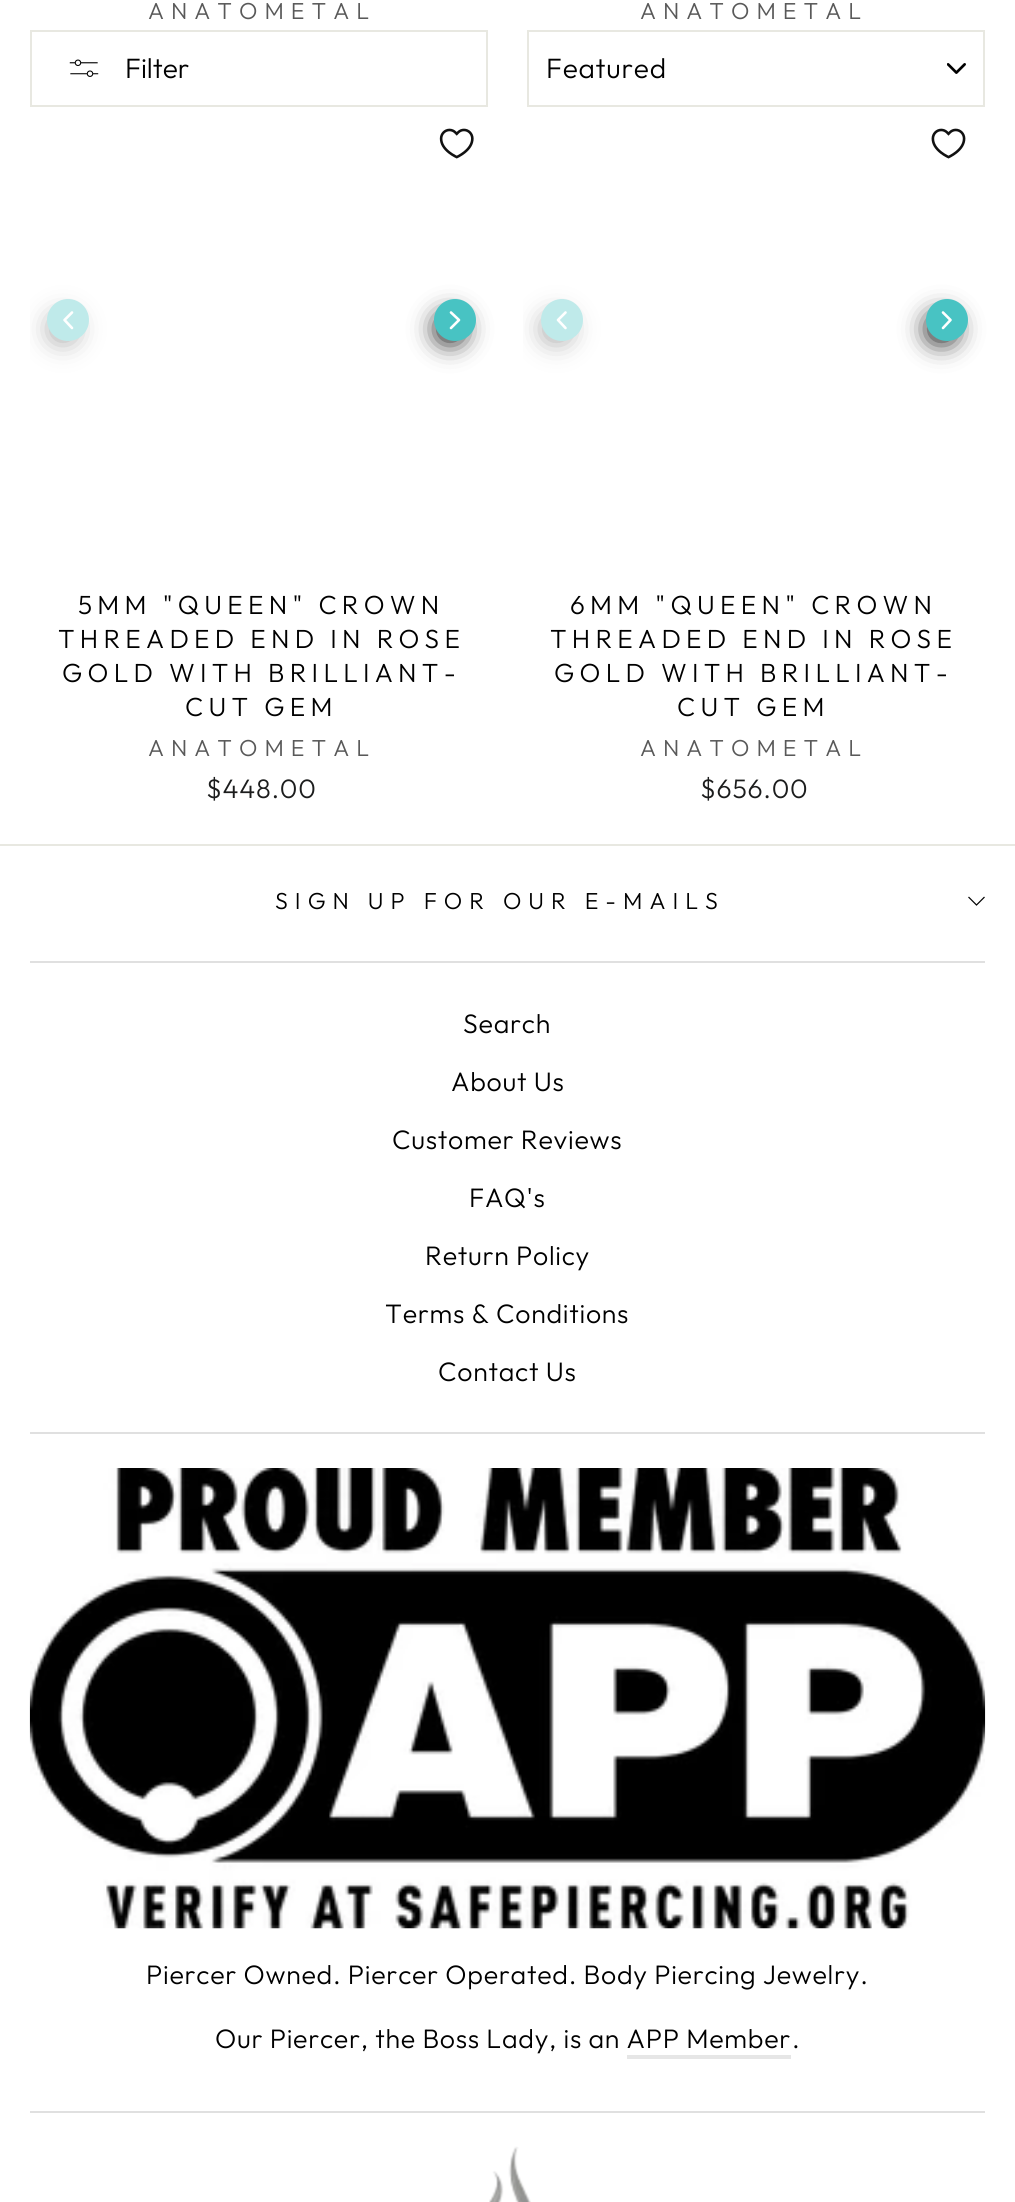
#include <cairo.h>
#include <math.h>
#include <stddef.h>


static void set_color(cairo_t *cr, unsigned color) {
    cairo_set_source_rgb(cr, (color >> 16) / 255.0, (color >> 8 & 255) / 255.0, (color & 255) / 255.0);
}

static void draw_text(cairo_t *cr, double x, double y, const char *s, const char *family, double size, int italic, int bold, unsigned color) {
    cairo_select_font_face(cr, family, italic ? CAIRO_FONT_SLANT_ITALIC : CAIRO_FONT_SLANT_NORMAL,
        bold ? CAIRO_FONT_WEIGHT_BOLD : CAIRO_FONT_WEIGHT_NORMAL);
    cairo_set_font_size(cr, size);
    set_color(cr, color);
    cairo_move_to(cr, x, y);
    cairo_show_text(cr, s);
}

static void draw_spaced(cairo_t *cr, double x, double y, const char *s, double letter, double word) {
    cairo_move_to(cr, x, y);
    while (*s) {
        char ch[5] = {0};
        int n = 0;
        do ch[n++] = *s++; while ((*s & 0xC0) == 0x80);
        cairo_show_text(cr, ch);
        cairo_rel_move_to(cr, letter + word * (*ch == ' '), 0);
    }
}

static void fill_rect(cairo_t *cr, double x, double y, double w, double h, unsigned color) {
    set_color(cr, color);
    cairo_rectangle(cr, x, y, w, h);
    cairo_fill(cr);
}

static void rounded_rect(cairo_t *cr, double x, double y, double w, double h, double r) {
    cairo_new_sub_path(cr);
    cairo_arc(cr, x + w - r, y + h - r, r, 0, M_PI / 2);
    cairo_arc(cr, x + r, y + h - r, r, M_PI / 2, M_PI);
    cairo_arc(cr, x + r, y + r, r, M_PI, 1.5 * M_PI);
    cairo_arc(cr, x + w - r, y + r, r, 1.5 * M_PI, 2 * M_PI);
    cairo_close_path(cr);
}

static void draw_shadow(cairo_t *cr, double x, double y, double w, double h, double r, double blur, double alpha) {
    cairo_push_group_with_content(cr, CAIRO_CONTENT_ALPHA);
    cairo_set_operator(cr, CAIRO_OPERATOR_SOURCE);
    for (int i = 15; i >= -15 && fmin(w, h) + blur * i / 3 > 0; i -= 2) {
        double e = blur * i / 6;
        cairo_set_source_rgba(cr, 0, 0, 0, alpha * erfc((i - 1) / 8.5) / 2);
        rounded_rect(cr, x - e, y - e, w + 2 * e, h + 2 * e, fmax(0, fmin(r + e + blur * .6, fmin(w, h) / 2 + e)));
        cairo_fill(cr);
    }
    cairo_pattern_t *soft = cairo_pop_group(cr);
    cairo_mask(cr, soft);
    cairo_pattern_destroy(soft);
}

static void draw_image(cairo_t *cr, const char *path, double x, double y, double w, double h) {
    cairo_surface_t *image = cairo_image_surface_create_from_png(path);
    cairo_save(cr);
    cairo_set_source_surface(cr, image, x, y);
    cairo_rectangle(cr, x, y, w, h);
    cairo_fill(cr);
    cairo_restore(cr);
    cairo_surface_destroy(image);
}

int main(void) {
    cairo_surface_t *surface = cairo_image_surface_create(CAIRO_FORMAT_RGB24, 1015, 2202);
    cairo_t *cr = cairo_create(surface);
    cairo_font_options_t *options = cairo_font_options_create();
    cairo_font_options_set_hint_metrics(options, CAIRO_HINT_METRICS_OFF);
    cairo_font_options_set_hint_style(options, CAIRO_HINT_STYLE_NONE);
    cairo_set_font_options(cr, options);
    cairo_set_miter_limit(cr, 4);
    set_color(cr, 0xFFFFFF);
    cairo_paint(cr);
    cairo_select_font_face(cr, "Outfit Light", CAIRO_FONT_SLANT_NORMAL, CAIRO_FONT_WEIGHT_NORMAL);
    cairo_set_font_size(cr, 23.2);
    set_color(cr, 0x595959);
    draw_spaced(cr, 148, 19, "ANATOMETAL", 7, 0);
    draw_spaced(cr, 640, 19, "ANATOMETAL", 7, 0);
    draw_image(cr, "assets/img1.png", 439, 128, 35, 31);
    cairo_save(cr);
    cairo_rectangle(cr, 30, 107, 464, 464);
    cairo_clip(cr);
    set_color(cr, 0xA6A6A6);
    draw_shadow(cr, 51, 317, 24, 24, 12, 13, 1);
    cairo_restore(cr);
    set_color(cr, 0xBFEAEA);
    cairo_arc(cr, 68, 320, 21, 0, 2 * M_PI);
    cairo_fill(cr);
    cairo_new_path(cr);
    cairo_move_to(cr, 72, 312.5);
    cairo_line_to(cr, 64.5, 320);
    cairo_line_to(cr, 72, 328);
    set_color(cr, 0xFFFFFF);
    cairo_set_line_width(cr, 2.6);
    cairo_set_line_cap(cr, CAIRO_LINE_CAP_ROUND);
    cairo_set_line_join(cr, CAIRO_LINE_JOIN_ROUND);
    cairo_stroke(cr);
    set_color(cr, 0x000000);
    draw_shadow(cr, 438, 317, 24, 24, 12, 13, 1);
    set_color(cr, 0x48C3C3);
    cairo_arc(cr, 455, 320, 21, 0, 2 * M_PI);
    cairo_fill(cr);
    cairo_new_path(cr);
    cairo_move_to(cr, 451, 312.5);
    cairo_line_to(cr, 459, 320);
    cairo_line_to(cr, 451, 328);
    set_color(cr, 0xFFFFFF);
    cairo_stroke(cr);
    cairo_set_font_size(cr, 26.25);
    set_color(cr, 0x000000);
    draw_spaced(cr, 78, 614, "5MM \"QUEEN\" CROWN", 5.25, 0);
    draw_spaced(cr, 58, 648, "THREADED END IN ROSE", 5.25, 0);
    draw_spaced(cr, 62, 682, "GOLD WITH BRILLIANT-", 5.25, 0);
    draw_spaced(cr, 185, 716, "CUT GEM", 5.25, 0);
    cairo_set_font_size(cr, 23.2);
    set_color(cr, 0x595959);
    draw_spaced(cr, 148, 756, "ANATOMETAL", 7, 0);
    cairo_set_font_size(cr, 26.75);
    set_color(cr, 0x1C1D1D);
    draw_spaced(cr, 206, 798, "$448.00", 0.72, 0);
    draw_image(cr, "assets/img2.png", 931, 128, 35, 31);
    cairo_save(cr);
    cairo_rectangle(cr, 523, 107, 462, 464);
    cairo_clip(cr);
    set_color(cr, 0xA6A6A6);
    draw_shadow(cr, 544, 317, 25, 24, 12, 13, 1);
    cairo_restore(cr);
    set_color(cr, 0xBFEAEA);
    cairo_arc(cr, 562, 320, 21, 0, 2 * M_PI);
    cairo_fill(cr);
    cairo_new_path(cr);
    cairo_move_to(cr, 565.5, 312.5);
    cairo_line_to(cr, 558, 320);
    cairo_line_to(cr, 565.5, 328);
    set_color(cr, 0xFFFFFF);
    cairo_stroke(cr);
    set_color(cr, 0x000000);
    draw_shadow(cr, 929, 317, 25, 24, 12, 13, 1);
    set_color(cr, 0x48C3C3);
    cairo_arc(cr, 947, 320, 21, 0, 2 * M_PI);
    cairo_fill(cr);
    cairo_new_path(cr);
    cairo_move_to(cr, 943, 312.5);
    cairo_line_to(cr, 950.5, 320);
    cairo_line_to(cr, 943, 328);
    set_color(cr, 0xFFFFFF);
    cairo_stroke(cr);
    cairo_set_font_size(cr, 26.25);
    set_color(cr, 0x000000);
    draw_spaced(cr, 570, 614, "6MM \"QUEEN\" CROWN", 5.25, 0);
    draw_spaced(cr, 550, 648, "THREADED END IN ROSE", 5.25, 0);
    draw_spaced(cr, 554, 682, "GOLD WITH BRILLIANT-", 5.25, 0);
    draw_spaced(cr, 677, 716, "CUT GEM", 5.25, 0);
    cairo_set_font_size(cr, 23.2);
    set_color(cr, 0x595959);
    draw_spaced(cr, 640, 756, "ANATOMETAL", 7, 0);
    cairo_set_font_size(cr, 26.75);
    set_color(cr, 0x1C1D1D);
    draw_spaced(cr, 700, 798, "$656.00", 0.72, 0);
    cairo_rectangle(cr, 31, 31, 456, 75);
    set_color(cr, 0xE8E8E1);
    cairo_set_line_width(cr, 2);
    cairo_set_line_cap(cr, CAIRO_LINE_CAP_BUTT);
    cairo_set_line_join(cr, CAIRO_LINE_JOIN_MITER);
    cairo_stroke(cr);
    draw_image(cr, "assets/img3.png", 69, 59, 30, 18);
    draw_text(cr, 125, 78, "Filter", "Outfit Light", 28, 0, 0, 0x000000);
    draw_image(cr, "assets/img4.png", 947, 63, 19, 11);
    cairo_rectangle(cr, 528, 31, 456, 75);
    set_color(cr, 0xE8E8E1);
    cairo_stroke(cr);
    set_color(cr, 0x000000);
    draw_spaced(cr, 546, 78, "Featured", 0.75, 0);
    fill_rect(cr, 0, 844, 1015, 2, 0xE8E8E1);
    cairo_set_font_size(cr, 23.2);
    set_color(cr, 0x000000);
    draw_spaced(cr, 275, 909, "SIGN UP FOR OUR E-MAILS", 7, 0);
    cairo_new_path(cr);
    cairo_move_to(cr, 968.5, 897);
    cairo_line_to(cr, 976.5, 905);
    cairo_line_to(cr, 984.5, 897);
    cairo_set_line_width(cr, 1.2);
    cairo_stroke(cr);
    fill_rect(cr, 30, 961, 955, 2, 0xE0E0E0);
    cairo_set_font_size(cr, 26.75);
    set_color(cr, 0x000000);
    draw_spaced(cr, 463, 1033, "Search", 0.72, 0);
    draw_spaced(cr, 451, 1091, "About Us", 0.72, 0);
    draw_spaced(cr, 392, 1149, "Customer Reviews", 0.72, 0);
    draw_spaced(cr, 469, 1207, "FAQ's", 0.72, 0);
    draw_spaced(cr, 425, 1265, "Return Policy", 0.72, 0);
    draw_spaced(cr, 385, 1323, "Terms & Conditions", 0.72, 0);
    draw_spaced(cr, 438, 1381, "Contact Us", 0.72, 0);
    fill_rect(cr, 30, 1432, 955, 2, 0xE0E0E0);
    draw_image(cr, "assets/img5.png", 29, 1468, 957, 461);
    set_color(cr, 0x000000);
    draw_spaced(cr, 146, 1984, "Piercer Owned. Piercer Operated. Body Piercing Jewelry.", 0.72, 0);
    draw_spaced(cr, 215, 2048, "Our Piercer, the Boss Lady, is an APP Member", 0.72, 0);
    draw_spaced(cr, 792, 2048, ".", 0.72, 0);
    fill_rect(cr, 627, 2055, 164, 4, 0xE6E6E6);
    fill_rect(cr, 30, 2111, 955, 2, 0xE0E0E0);
    draw_image(cr, "assets/img6.png", 489, 2146, 42, 56);
    cairo_surface_write_to_png(surface, "output.png");
    cairo_font_options_destroy(options);
    cairo_destroy(cr);
    cairo_surface_destroy(surface);
    return 0;
}
